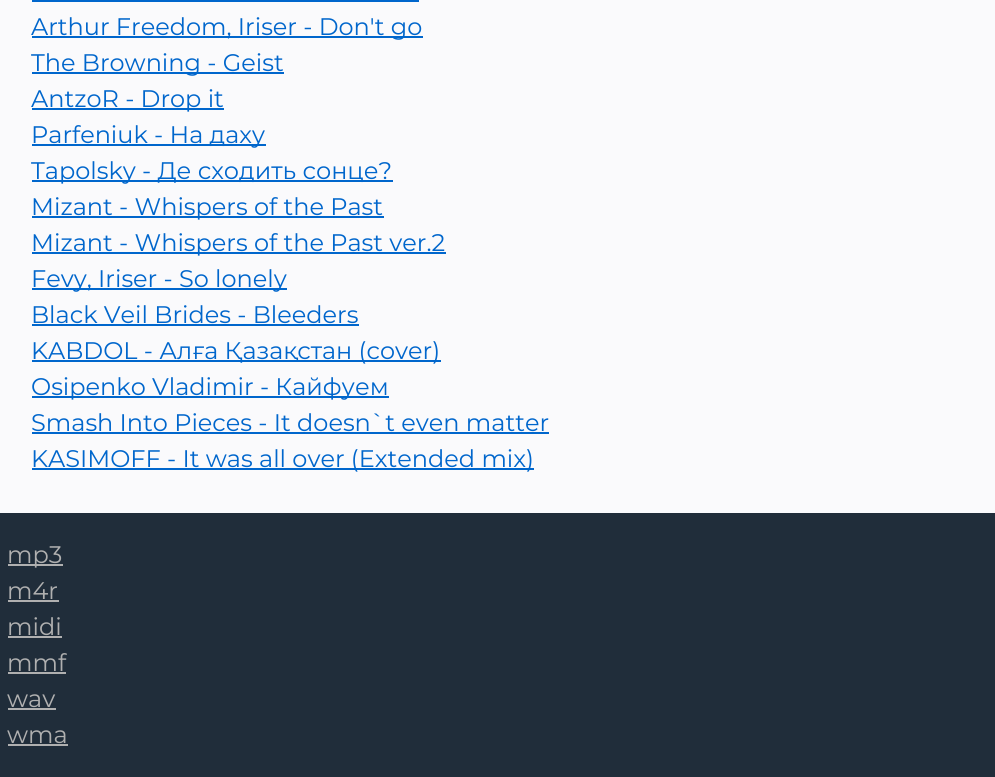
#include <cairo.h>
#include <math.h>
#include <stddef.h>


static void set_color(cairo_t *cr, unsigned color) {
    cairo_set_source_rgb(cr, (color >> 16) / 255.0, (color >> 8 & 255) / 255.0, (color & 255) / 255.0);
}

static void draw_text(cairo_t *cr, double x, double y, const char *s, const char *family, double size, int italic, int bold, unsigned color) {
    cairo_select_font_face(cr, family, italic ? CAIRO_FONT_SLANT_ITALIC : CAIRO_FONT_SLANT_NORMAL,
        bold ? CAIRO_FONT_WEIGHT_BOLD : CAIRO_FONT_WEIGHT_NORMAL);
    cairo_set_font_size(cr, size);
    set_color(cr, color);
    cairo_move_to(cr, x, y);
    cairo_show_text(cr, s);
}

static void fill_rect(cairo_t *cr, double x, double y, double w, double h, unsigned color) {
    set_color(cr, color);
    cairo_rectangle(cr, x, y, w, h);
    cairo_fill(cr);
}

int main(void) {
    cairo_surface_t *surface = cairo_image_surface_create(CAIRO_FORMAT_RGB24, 995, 777);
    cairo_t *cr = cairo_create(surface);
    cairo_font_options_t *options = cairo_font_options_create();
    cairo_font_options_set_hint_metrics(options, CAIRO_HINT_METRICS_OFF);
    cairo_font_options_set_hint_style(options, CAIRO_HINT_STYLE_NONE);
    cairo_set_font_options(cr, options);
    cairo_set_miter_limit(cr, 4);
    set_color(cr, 0xFAFAFC);
    cairo_paint(cr);
    fill_rect(cr, 32, 0, 387, 2, 0x0066CC);
    fill_rect(cr, 32, 36, 391, 2, 0x0066CC);
    draw_text(cr, 31, 35, "Arthur Freedom, Iriser - Don't go", "Montserrat", 24, 0, 0, 0x0066CC);
    fill_rect(cr, 32, 72, 252, 2, 0x0066CC);
    draw_text(cr, 31, 71, "The Browning - Geist", "Montserrat", 24, 0, 0, 0x0066CC);
    fill_rect(cr, 32, 108, 192, 2, 0x0066CC);
    draw_text(cr, 31, 107, "AntzoR - Drop it", "Montserrat", 24, 0, 0, 0x0066CC);
    fill_rect(cr, 32, 144, 234, 2, 0x0066CC);
    draw_text(cr, 31, 143, "Parfeniuk - На даху", "Montserrat", 24, 0, 0, 0x0066CC);
    fill_rect(cr, 32, 180, 361, 2, 0x0066CC);
    draw_text(cr, 31, 179, "Tapolsky - Де сходить сонце?", "Montserrat", 24, 0, 0, 0x0066CC);
    fill_rect(cr, 32, 216, 352, 2, 0x0066CC);
    draw_text(cr, 31, 215, "Mizant - Whispers of the Past", "Montserrat", 24, 0, 0, 0x0066CC);
    fill_rect(cr, 32, 252, 414, 2, 0x0066CC);
    draw_text(cr, 31, 251, "Mizant - Whispers of the Past ver.2", "Montserrat", 24, 0, 0, 0x0066CC);
    fill_rect(cr, 32, 288, 255, 2, 0x0066CC);
    draw_text(cr, 31, 287, "Fevy, Iriser - So lonely", "Montserrat", 24, 0, 0, 0x0066CC);
    draw_text(cr, 31, 323, "Black Veil Brides - Bleeders", "Montserrat", 24, 0, 0, 0x0066CC);
    fill_rect(cr, 32, 324, 327, 2, 0x0066CC);
    fill_rect(cr, 32, 360, 409, 2, 0x0066CC);
    draw_text(cr, 31, 359, "KABDOL - Алға Қазақстан (cover)", "Montserrat", 24, 0, 0, 0x0066CC);
    fill_rect(cr, 32, 396, 357, 2, 0x0066CC);
    draw_text(cr, 31, 395, "Osipenko Vladimir - Кайфуем", "Montserrat", 24, 0, 0, 0x0066CC);
    draw_text(cr, 31, 431, "Smash Into Pieces - It doesn`t even matter", "Montserrat", 24, 0, 0, 0x0066CC);
    fill_rect(cr, 32, 432, 517, 2, 0x0066CC);
    fill_rect(cr, 32, 468, 502, 2, 0x0066CC);
    draw_text(cr, 31, 467, "KASIMOFF - It was all over (Extended mix)", "Montserrat", 24, 0, 0, 0x0066CC);
    fill_rect(cr, 0, 513, 995, 264, 0x202D3A);
    fill_rect(cr, 8, 564, 55, 2, 0xB0B0B0);
    draw_text(cr, 7, 563, "mp3", "Montserrat", 24, 0, 0, 0xB0B0B0);
    draw_text(cr, 7, 599, "m4r", "Montserrat", 24, 0, 0, 0xB0B0B0);
    fill_rect(cr, 8, 600, 51, 2, 0xB0B0B0);
    draw_text(cr, 7, 635, "midi", "Montserrat", 24, 0, 0, 0xB0B0B0);
    fill_rect(cr, 8, 636, 54, 2, 0xB0B0B0);
    draw_text(cr, 7, 671, "mmf", "Montserrat", 24, 0, 0, 0xB0B0B0);
    fill_rect(cr, 8, 672, 58, 2, 0xB0B0B0);
    draw_text(cr, 7, 707, "wav", "Montserrat", 24, 0, 0, 0xB0B0B0);
    fill_rect(cr, 8, 708, 48, 2, 0xB0B0B0);
    draw_text(cr, 7, 743, "wma", "Montserrat", 24, 0, 0, 0xB0B0B0);
    fill_rect(cr, 8, 744, 60, 2, 0xB0B0B0);
    cairo_surface_write_to_png(surface, "output.png");
    cairo_font_options_destroy(options);
    cairo_destroy(cr);
    cairo_surface_destroy(surface);
    return 0;
}
